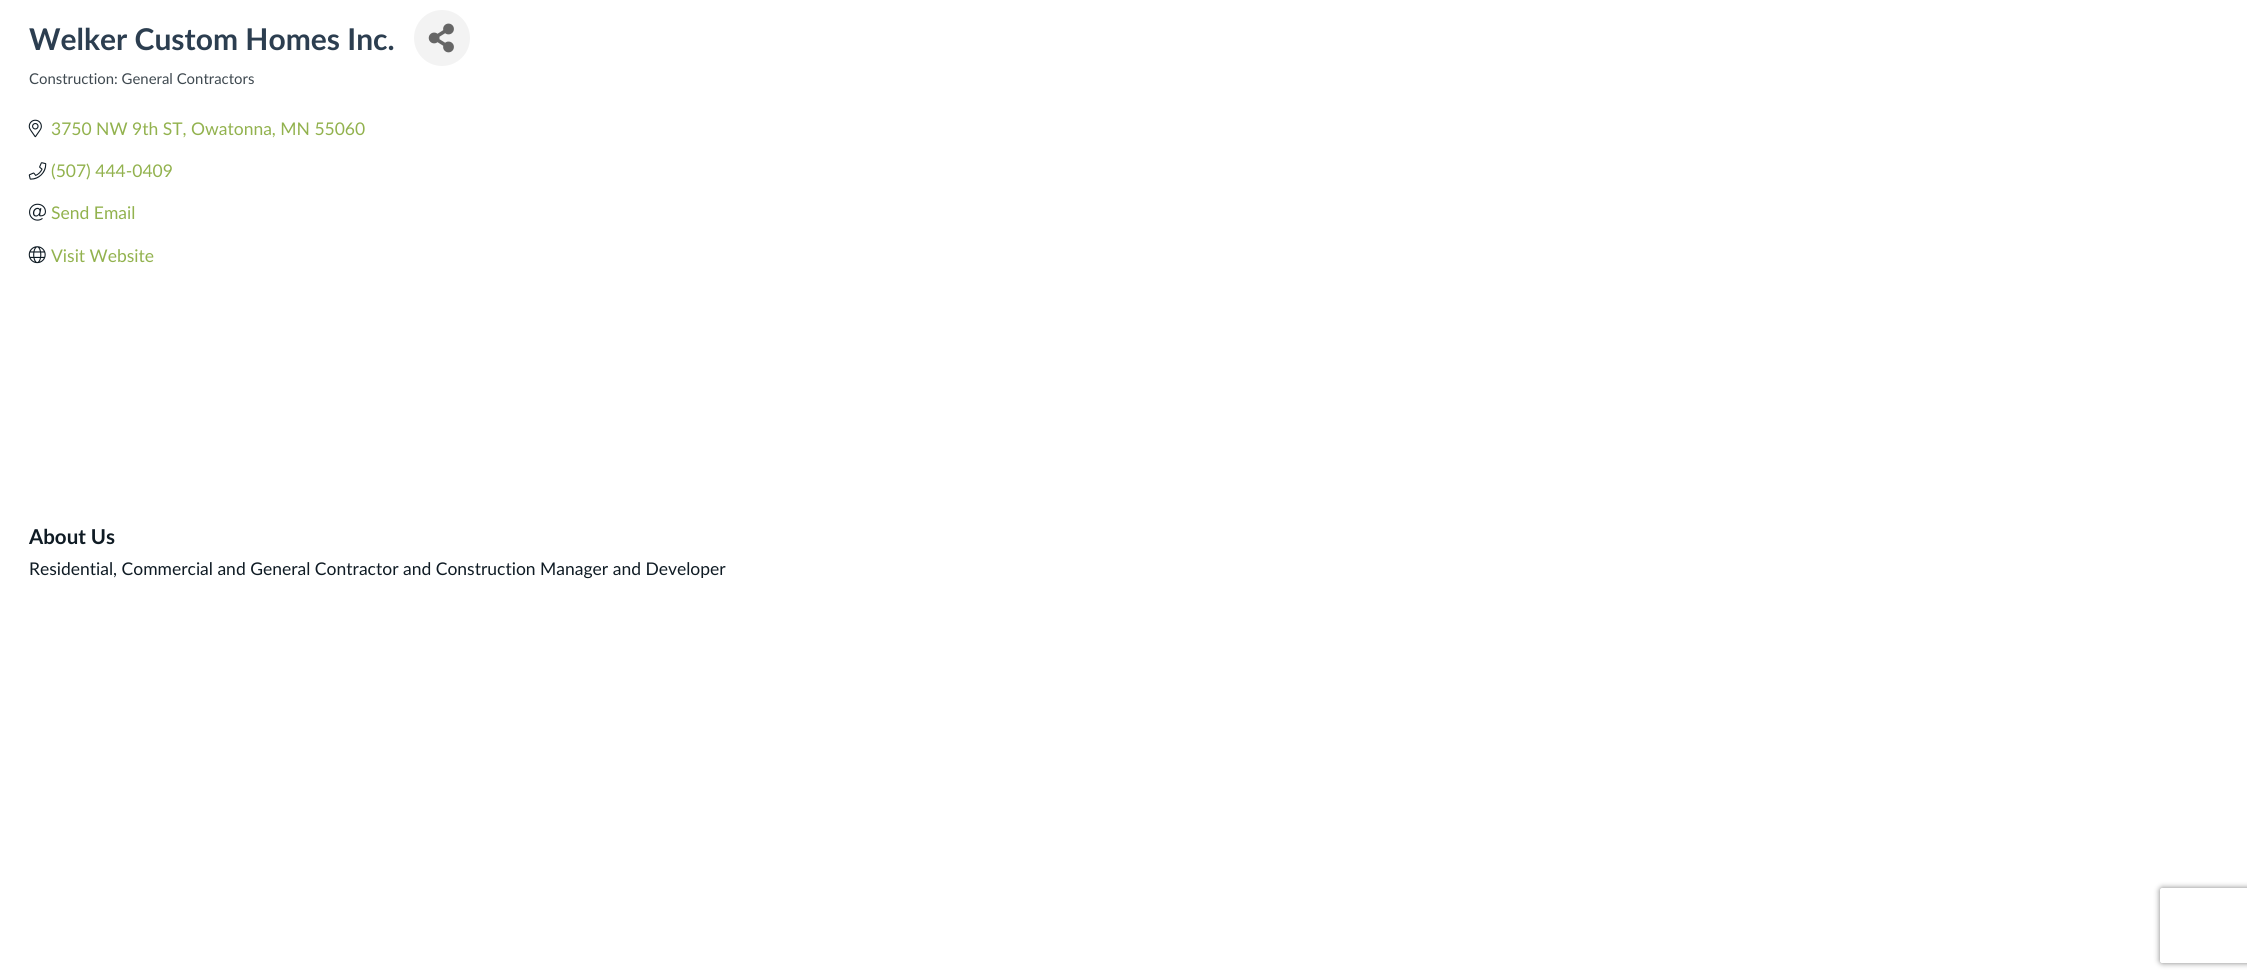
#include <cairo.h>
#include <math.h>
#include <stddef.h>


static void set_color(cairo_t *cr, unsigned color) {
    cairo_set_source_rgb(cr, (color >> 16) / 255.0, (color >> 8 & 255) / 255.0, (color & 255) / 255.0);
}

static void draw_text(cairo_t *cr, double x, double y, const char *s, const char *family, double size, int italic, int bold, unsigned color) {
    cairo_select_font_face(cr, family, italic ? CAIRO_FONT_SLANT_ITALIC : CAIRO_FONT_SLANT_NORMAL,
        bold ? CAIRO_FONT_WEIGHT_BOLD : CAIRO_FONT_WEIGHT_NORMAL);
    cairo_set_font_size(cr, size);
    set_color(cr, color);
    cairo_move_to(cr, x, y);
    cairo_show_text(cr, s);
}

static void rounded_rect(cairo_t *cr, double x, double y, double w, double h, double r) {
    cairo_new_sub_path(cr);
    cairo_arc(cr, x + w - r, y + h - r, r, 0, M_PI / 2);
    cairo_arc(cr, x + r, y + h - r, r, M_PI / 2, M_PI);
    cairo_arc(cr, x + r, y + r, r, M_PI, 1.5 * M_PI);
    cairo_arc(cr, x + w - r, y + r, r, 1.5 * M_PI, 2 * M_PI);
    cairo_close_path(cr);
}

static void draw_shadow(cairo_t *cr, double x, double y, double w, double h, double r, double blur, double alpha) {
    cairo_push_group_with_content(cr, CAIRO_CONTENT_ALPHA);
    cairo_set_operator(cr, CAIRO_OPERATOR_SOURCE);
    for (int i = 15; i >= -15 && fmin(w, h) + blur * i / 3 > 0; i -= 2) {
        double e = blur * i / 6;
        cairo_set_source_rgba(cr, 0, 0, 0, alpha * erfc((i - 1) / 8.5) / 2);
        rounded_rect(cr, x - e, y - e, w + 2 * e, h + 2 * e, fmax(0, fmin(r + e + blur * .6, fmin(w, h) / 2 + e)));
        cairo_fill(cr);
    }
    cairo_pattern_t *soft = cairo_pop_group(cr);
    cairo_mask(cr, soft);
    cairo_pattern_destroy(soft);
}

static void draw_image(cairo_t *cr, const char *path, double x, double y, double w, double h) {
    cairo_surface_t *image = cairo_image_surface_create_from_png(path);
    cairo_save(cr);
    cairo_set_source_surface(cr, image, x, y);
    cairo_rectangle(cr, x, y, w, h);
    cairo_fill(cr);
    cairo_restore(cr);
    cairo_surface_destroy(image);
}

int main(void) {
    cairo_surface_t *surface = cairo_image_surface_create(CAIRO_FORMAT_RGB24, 2247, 979);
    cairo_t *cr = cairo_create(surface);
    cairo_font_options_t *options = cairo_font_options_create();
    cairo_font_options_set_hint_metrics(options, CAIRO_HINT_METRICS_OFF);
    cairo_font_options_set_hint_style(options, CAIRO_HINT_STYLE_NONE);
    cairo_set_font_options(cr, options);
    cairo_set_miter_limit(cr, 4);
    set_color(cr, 0xFFFFFF);
    cairo_paint(cr);
    draw_text(cr, 29, 50, "Welker Custom Homes Inc.", "Lato", 30, 0, 1, 0x2C3E50);
    set_color(cr, 0xF3F3F3);
    cairo_new_path(cr);
    cairo_arc(cr, 442, 38, 28, 0, 2 * M_PI);
    cairo_fill(cr);
    draw_image(cr, "assets/img1.png", 428, 23, 26, 30);
    draw_text(cr, 29, 84, "Construction: General Contractors", "Lato", 14.9, 0, 0, 0x3F4950);
    draw_image(cr, "assets/img2.png", 28, 119, 14, 19);
    draw_text(cr, 51, 135, "3750 NW 9th ST, Owatonna, MN 55060", "Lato", 17.5, 0, 0, 0x92B24E);
    draw_image(cr, "assets/img3.png", 28, 162, 19, 18);
    draw_text(cr, 51, 177, "(507) 444-0409", "Lato", 17.5, 0, 0, 0x92B24E);
    draw_image(cr, "assets/img4.png", 29, 203, 17, 18);
    draw_text(cr, 51, 219, "Send Email", "Lato", 17.5, 0, 0, 0x92B24E);
    draw_image(cr, "assets/img5.png", 28, 246, 18, 18);
    draw_text(cr, 51, 262, "Visit Website", "Lato", 17.5, 0, 0, 0x92B24E);
    draw_text(cr, 29, 544, "About Us", "Lato", 20.5, 0, 1, 0x0F1B24);
    draw_text(cr, 29, 575, "Residential, Commercial and General Contractor and Construction Manager and Developer", "Lato", 17.5, 0, 0, 0x0F1B24);
    cairo_save(cr);
    cairo_set_fill_rule(cr, CAIRO_FILL_RULE_EVEN_ODD);
    cairo_new_path(cr);
    cairo_move_to(cr, 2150, 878);
    cairo_line_to(cr, 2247, 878);
    cairo_line_to(cr, 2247, 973);
    cairo_line_to(cr, 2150, 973);
    cairo_close_path(cr);
    cairo_move_to(cr, 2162.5, 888);
    cairo_line_to(cr, 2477.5, 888);
    cairo_curve_to(cr, 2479, 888, 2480, 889, 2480, 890.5);
    cairo_line_to(cr, 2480, 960.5);
    cairo_curve_to(cr, 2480, 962, 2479, 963, 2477.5, 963);
    cairo_line_to(cr, 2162.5, 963);
    cairo_curve_to(cr, 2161, 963, 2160, 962, 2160, 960.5);
    cairo_line_to(cr, 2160, 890.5);
    cairo_curve_to(cr, 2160, 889, 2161, 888, 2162.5, 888);
    cairo_close_path(cr);
    cairo_clip(cr);
    set_color(cr, 0x808080);
    draw_shadow(cr, 2160, 888, 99, 75, 2.5, 3, 1);
    cairo_restore(cr);
    cairo_surface_write_to_png(surface, "output.png");
    cairo_font_options_destroy(options);
    cairo_destroy(cr);
    cairo_surface_destroy(surface);
    return 0;
}
